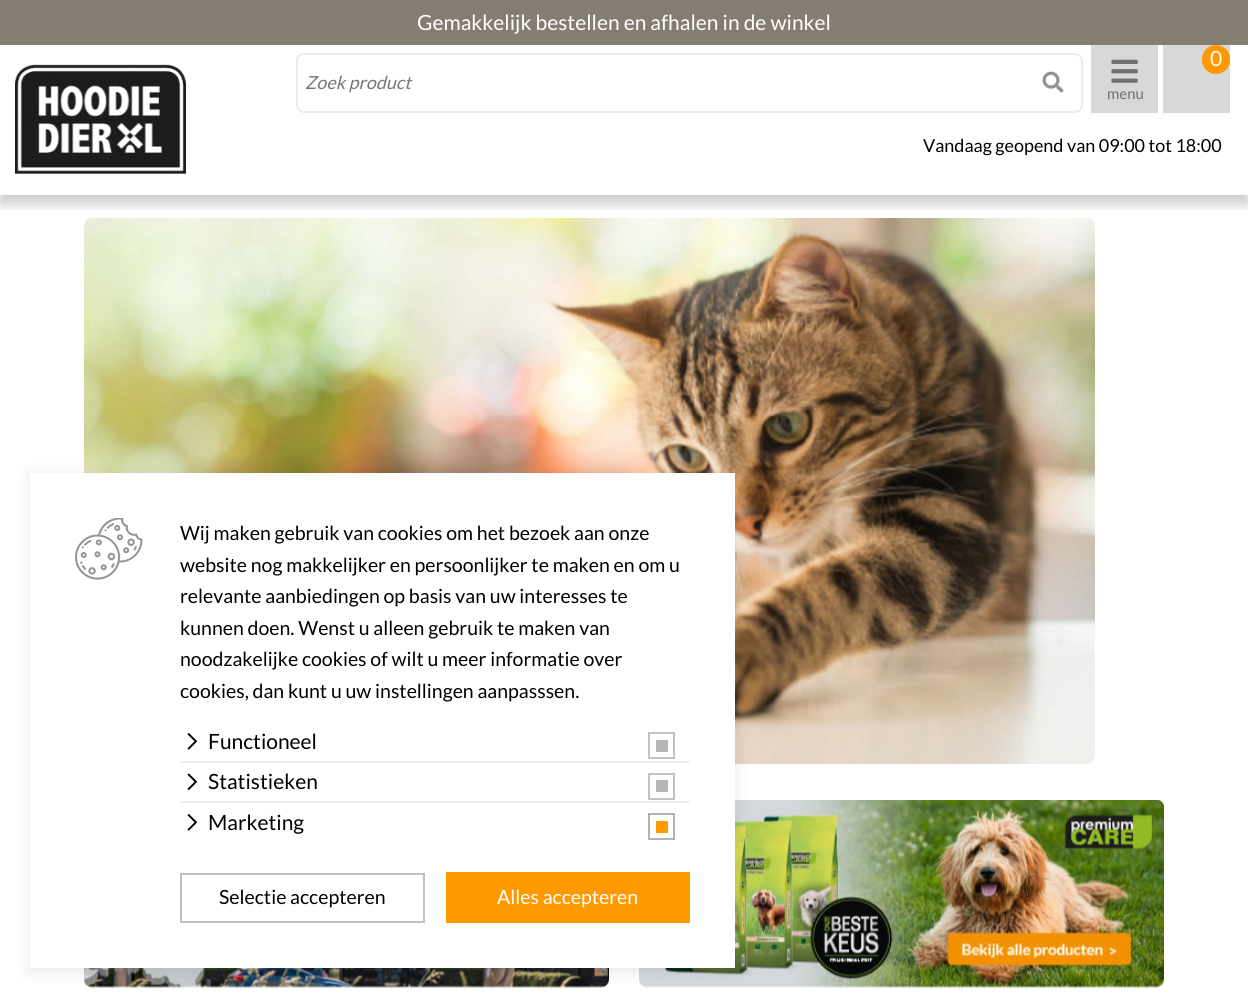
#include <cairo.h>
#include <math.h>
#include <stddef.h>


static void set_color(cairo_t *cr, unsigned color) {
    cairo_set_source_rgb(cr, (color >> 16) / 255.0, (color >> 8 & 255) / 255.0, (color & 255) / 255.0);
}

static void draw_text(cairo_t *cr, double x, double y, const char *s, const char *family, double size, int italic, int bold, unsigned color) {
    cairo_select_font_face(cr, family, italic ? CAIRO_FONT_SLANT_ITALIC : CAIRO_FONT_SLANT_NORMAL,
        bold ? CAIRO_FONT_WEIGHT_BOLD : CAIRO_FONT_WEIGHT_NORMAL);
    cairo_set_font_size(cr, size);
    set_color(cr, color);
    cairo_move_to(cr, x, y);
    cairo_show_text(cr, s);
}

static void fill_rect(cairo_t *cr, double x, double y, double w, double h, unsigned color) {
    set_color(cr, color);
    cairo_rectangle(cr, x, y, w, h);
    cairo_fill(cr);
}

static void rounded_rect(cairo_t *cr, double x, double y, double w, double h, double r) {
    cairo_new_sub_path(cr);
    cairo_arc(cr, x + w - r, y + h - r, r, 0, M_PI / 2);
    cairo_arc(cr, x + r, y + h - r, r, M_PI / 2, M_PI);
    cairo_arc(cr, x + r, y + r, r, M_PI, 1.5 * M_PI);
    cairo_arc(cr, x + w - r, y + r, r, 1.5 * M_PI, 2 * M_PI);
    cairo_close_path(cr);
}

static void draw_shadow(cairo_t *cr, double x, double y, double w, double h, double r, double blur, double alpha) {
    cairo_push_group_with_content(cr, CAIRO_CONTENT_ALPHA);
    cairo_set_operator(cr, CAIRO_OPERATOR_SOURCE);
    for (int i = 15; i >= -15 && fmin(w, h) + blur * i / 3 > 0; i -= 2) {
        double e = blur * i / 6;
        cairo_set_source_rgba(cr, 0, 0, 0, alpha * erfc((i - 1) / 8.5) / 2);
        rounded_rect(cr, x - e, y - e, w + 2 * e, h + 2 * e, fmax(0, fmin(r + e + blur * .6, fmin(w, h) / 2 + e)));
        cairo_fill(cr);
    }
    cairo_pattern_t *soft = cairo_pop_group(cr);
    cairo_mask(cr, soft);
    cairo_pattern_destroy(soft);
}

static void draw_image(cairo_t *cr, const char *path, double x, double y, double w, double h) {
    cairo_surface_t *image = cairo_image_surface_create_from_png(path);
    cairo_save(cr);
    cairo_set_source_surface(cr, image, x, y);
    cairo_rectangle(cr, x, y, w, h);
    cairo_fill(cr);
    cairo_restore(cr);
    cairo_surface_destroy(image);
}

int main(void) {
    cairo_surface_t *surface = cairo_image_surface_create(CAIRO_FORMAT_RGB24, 1248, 997);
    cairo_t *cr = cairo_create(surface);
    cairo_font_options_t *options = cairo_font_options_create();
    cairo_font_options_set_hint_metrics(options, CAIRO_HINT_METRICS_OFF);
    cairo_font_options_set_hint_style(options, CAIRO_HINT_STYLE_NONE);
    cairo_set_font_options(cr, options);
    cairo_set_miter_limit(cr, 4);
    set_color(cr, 0xFFFFFF);
    cairo_paint(cr);
    draw_image(cr, "assets/img4.png", 84, 218, 1011, 546);
    cairo_save(cr);
    cairo_rectangle(cr, 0, 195, 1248, 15);
    cairo_clip(cr);
    set_color(cr, 0x000000);
    draw_shadow(cr, 0, 8, 1248, 195, 0, 7.5, 0.12);
    draw_shadow(cr, 0, 8, 1248, 195, 0, 7.5, 0.12);
    cairo_restore(cr);
    rounded_rect(cr, 297, 54, 785, 58, 7);
    set_color(cr, 0xECECEC);
    cairo_stroke(cr);
    draw_text(cr, 305, 89, "Zoek product", "Lato", 18, 1, 0, 0x757575);
    draw_image(cr, "assets/img1.png", 1042, 71, 22, 22);
    fill_rect(cr, 0, 0, 1248, 45, 0x867D72);
    draw_text(cr, 417, 30, "Gemakkelijk bestellen en afhalen in de winkel", "Lato", 21, 0, 0, 0xFFFFFF);
    draw_image(cr, "assets/img2.png", 15, 64, 171, 110);
    fill_rect(cr, 1163, 45, 67, 68, 0xD8D8D8);
    set_color(cr, 0xFF9900);
    rounded_rect(cr, 1202, 45, 28, 29, 14);
    cairo_fill(cr);
    draw_text(cr, 1210, 66, "0", "Lato", 21, 0, 0, 0xFFFFFF);
    fill_rect(cr, 1091, 45, 67, 68, 0xD8D8D8);
    draw_image(cr, "assets/img3.png", 1111, 59, 27, 24);
    draw_text(cr, 1107, 99, "menu", "Lato", 15, 0, 0, 0x70706F);
    draw_text(cr, 923, 152, "Vandaag geopend van 09:00 tot 18:00", "Lato", 18, 0, 0, 0x000000);
    draw_image(cr, "assets/img5.png", 84, 968, 525, 20);
    draw_image(cr, "assets/img6.png", 639, 800, 525, 188);
    set_color(cr, 0x000000);
    draw_shadow(cr, 30, 476, 705, 495, 0, 7.5, 0.1);
    fill_rect(cr, 30, 473, 705, 495, 0xFFFFFF);
    draw_image(cr, "assets/img7.png", 75, 518, 68, 62);
    draw_text(cr, 180, 540, "Wij maken gebruik van cookies om het bezoek aan onze", "Lato", 19.5, 0, 0, 0x000000);
    draw_text(cr, 180, 572, "website nog makkelijker en persoonlijker te maken en om u", "Lato", 19.5, 0, 0, 0x000000);
    draw_text(cr, 180, 603, "relevante aanbiedingen op basis van uw interesses te", "Lato", 19.5, 0, 0, 0x000000);
    draw_text(cr, 180, 635, "kunnen doen. Wenst u alleen gebruik te maken van", "Lato", 19.5, 0, 0, 0x000000);
    draw_text(cr, 180, 666, "noodzakelijke cookies of wilt u meer informatie over", "Lato", 19.5, 0, 0, 0x000000);
    draw_text(cr, 180, 698, "cookies, dan kunt u uw instellingen aanpasssen.", "Lato", 19.5, 0, 0, 0x000000);
    draw_image(cr, "assets/img8.png", 187, 733, 11, 17);
    draw_text(cr, 208, 749, "Functioneel", "Lato", 21, 0, 0, 0x000000);
    cairo_rectangle(cr, 649, 733, 25, 25);
    set_color(cr, 0xC2C2C2);
    cairo_stroke(cr);
    fill_rect(cr, 656, 740, 12, 12, 0xB6B6B6);
    fill_rect(cr, 180, 761, 510, 2, 0xEEEEEE);
    draw_image(cr, "assets/img9.png", 187, 773, 11, 18);
    draw_text(cr, 208, 789, "Statistieken", "Lato", 21, 0, 0, 0x000000);
    cairo_rectangle(cr, 649, 774, 25, 25);
    set_color(cr, 0xC2C2C2);
    cairo_stroke(cr);
    fill_rect(cr, 656, 780, 12, 12, 0xB6B6B6);
    fill_rect(cr, 180, 801, 510, 2, 0xEEEEEE);
    draw_image(cr, "assets/img8.png", 187, 814, 11, 17);
    draw_text(cr, 208, 830, "Marketing", "Lato", 21, 0, 0, 0x000000);
    cairo_rectangle(cr, 649, 814, 25, 25);
    set_color(cr, 0xB3B3B3);
    cairo_stroke(cr);
    fill_rect(cr, 656, 821, 12, 12, 0xFF9900);
    cairo_rectangle(cr, 181, 874, 243, 48);
    set_color(cr, 0xC0C0C0);
    cairo_stroke(cr);
    draw_text(cr, 219, 904, "Selectie accepteren", "Lato", 19.5, 0, 0, 0x000000);
    fill_rect(cr, 446, 872, 244, 51, 0xFF9900);
    draw_text(cr, 497, 904, "Alles accepteren", "Lato", 19.5, 0, 0, 0xFFFFFF);
    cairo_surface_write_to_png(surface, "output.png");
    cairo_font_options_destroy(options);
    cairo_destroy(cr);
    cairo_surface_destroy(surface);
    return 0;
}
